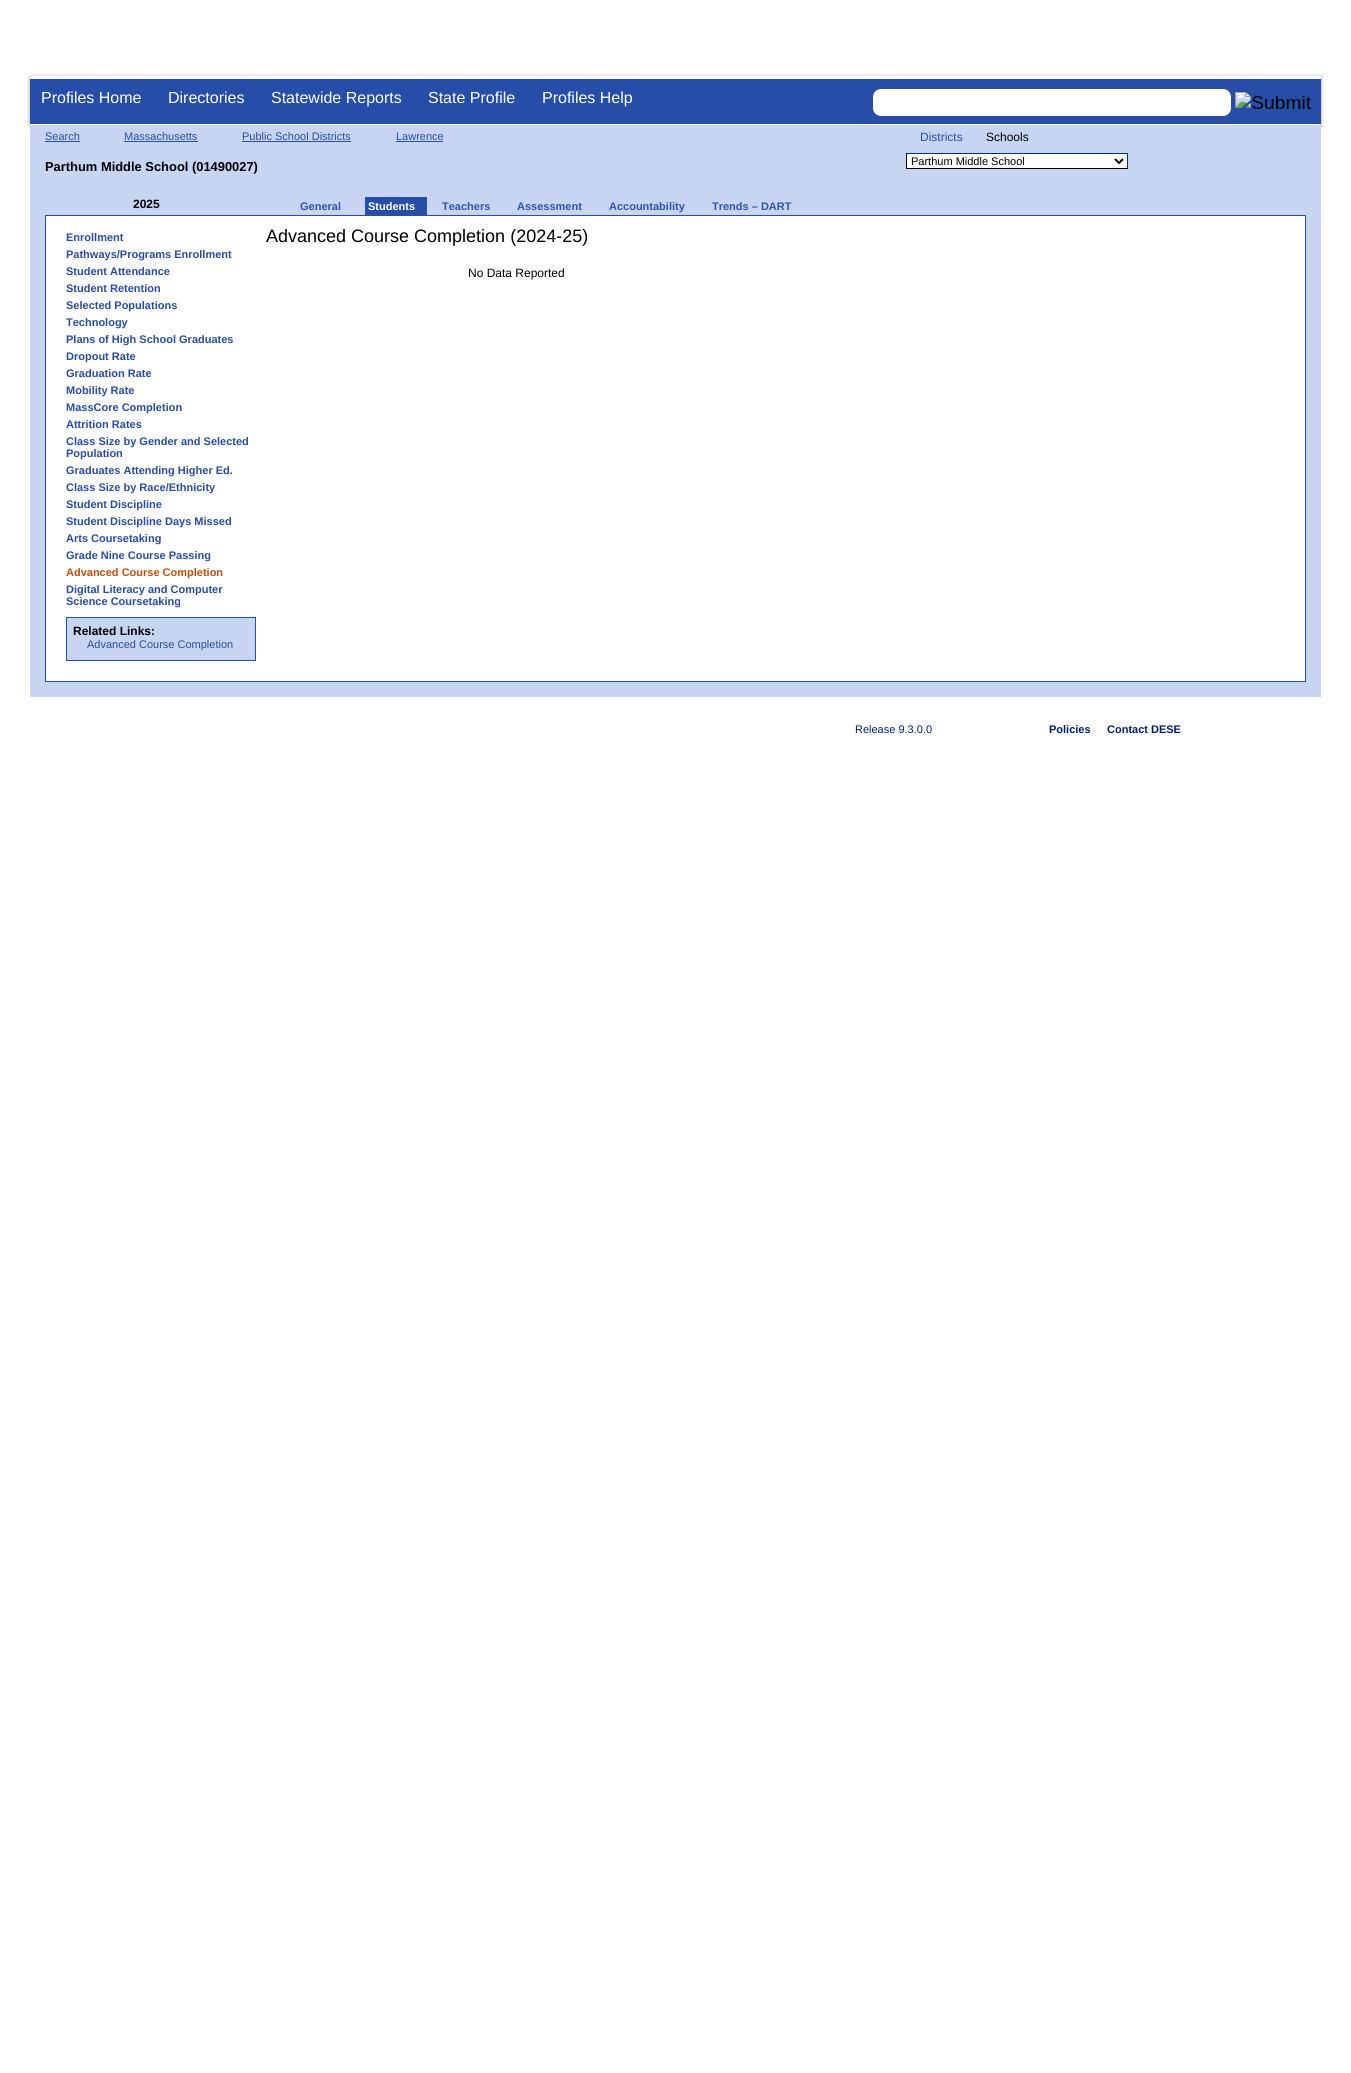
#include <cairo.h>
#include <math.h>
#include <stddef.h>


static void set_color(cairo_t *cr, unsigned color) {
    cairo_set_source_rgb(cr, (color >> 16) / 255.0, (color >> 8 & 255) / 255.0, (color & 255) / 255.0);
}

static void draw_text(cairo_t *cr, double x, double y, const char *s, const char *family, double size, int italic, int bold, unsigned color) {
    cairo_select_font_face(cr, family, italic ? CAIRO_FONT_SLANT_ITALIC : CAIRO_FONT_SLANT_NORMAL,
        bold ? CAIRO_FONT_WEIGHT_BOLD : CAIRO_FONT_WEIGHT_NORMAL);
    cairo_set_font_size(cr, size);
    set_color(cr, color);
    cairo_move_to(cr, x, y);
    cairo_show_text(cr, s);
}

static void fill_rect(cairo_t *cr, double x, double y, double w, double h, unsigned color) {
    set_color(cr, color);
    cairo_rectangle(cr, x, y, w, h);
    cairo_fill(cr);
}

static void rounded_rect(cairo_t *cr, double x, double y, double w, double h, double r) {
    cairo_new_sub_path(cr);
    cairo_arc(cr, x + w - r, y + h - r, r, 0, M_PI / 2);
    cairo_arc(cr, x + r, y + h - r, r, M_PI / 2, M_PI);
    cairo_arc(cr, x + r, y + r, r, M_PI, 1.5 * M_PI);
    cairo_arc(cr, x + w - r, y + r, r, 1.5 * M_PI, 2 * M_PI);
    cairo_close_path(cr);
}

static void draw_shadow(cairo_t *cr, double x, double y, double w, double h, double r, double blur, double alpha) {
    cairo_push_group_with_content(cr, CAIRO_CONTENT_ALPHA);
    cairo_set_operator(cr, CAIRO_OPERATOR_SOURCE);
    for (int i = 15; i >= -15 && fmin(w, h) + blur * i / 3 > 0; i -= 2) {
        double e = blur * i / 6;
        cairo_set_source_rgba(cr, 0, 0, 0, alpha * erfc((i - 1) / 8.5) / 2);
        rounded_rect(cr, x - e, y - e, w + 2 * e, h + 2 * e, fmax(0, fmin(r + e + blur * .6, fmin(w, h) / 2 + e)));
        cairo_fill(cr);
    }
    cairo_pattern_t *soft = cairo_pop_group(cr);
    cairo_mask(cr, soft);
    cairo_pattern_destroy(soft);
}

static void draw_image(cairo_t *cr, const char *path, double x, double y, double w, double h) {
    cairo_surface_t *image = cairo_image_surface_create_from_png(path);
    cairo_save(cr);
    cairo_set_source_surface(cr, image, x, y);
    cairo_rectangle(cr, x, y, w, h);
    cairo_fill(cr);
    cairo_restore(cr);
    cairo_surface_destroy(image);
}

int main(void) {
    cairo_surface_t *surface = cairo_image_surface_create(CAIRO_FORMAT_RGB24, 1351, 2073);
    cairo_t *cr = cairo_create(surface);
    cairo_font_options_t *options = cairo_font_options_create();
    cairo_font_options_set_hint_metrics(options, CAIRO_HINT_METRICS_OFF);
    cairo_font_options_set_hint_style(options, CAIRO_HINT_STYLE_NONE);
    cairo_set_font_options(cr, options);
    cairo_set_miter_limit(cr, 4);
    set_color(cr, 0xFFFFFF);
    cairo_paint(cr);
    set_color(cr, 0x9C9C9C);
    draw_shadow(cr, 30, 77, 1291, 49, 0, 2, 1);
    fill_rect(cr, 30, 79, 1291, 45, 0x264DA7);
    fill_rect(cr, 30, 76, 1291, 3, 0xFFFFFF);
    fill_rect(cr, 30, 124, 1291, 1, 0xFFFFFF);
    draw_text(cr, 41, 103, "Profiles Home", "Liberation Sans", 16, 0, 0, 0xFFFFFF);
    draw_text(cr, 168, 103, "Directories", "Liberation Sans", 16, 0, 0, 0xFFFFFF);
    draw_text(cr, 271, 103, "Statewide Reports", "Liberation Sans", 16, 0, 0, 0xFFFFFF);
    draw_text(cr, 428, 103, "State Profile", "Liberation Sans", 16, 0, 0, 0xFFFFFF);
    draw_text(cr, 542, 103, "Profiles Help", "Liberation Sans", 16, 0, 0, 0xFFFFFF);
    rounded_rect(cr, 873, 89, 358, 27, 8);
    cairo_fill(cr);
    draw_image(cr, "assets/img1.png", 1235, 92, 76, 17);
    fill_rect(cr, 30, 125, 1291, 572, 0xC7D5F2);
    draw_text(cr, 45, 140, "Search", "Liberation Sans", 11, 0, 0, 0x264DA7);
    fill_rect(cr, 45, 141, 35, 1, 0x264DA7);
    draw_text(cr, 124, 140, "Massachusetts", "Liberation Sans", 11, 0, 0, 0x264DA7);
    fill_rect(cr, 124, 141, 74, 1, 0x264DA7);
    draw_text(cr, 242, 140, "Public School Districts", "Liberation Sans", 11, 0, 0, 0x264DA7);
    fill_rect(cr, 242, 141, 109, 1, 0x264DA7);
    draw_text(cr, 396, 140, "Lawrence", "Liberation Sans", 11, 0, 0, 0x264DA7);
    fill_rect(cr, 396, 141, 47, 1, 0x264DA7);
    draw_text(cr, 45, 171, "Parthum Middle School (01490027)", "Liberation Sans", 12.9, 0, 1, 0x000000);
    draw_text(cr, 920, 141, "Districts", "Liberation Sans", 12, 0, 0, 0x264DA7);
    draw_text(cr, 986, 141, "Schools", "Liberation Sans", 12, 0, 0, 0x000000);
    fill_rect(cr, 907, 154, 220, 14, 0xFFFFFF);
    fill_rect(cr, 906, 153, 222, 1, 0x003366);
    fill_rect(cr, 1127, 153, 1, 16, 0x003366);
    fill_rect(cr, 906, 168, 222, 1, 0x000000);
    fill_rect(cr, 906, 153, 1, 16, 0x000000);
    cairo_new_path(cr);
    cairo_move_to(cr, 1115, 159);
    cairo_line_to(cr, 1119, 163);
    cairo_line_to(cr, 1123, 159);
    cairo_stroke(cr);
    draw_text(cr, 911, 165, "Parthum Middle School", "Liberation Sans", 11, 0, 0, 0x000000);
    draw_text(cr, 133, 208, "2025", "Liberation Sans", 12, 0, 1, 0x000000);
    draw_text(cr, 300, 210, "General", "Liberation Sans", 11, 0, 1, 0x2B55B2);
    fill_rect(cr, 365, 197, 62, 18, 0x264DA7);
    draw_text(cr, 368, 210, "Students", "Liberation Sans", 11, 0, 1, 0xFFFFFF);
    draw_text(cr, 442, 210, "Teachers", "Liberation Sans", 11, 0, 1, 0x2B55B2);
    draw_text(cr, 517, 210, "Assessment", "Liberation Sans", 11, 0, 1, 0x2B55B2);
    draw_text(cr, 609, 210, "Accountability", "Liberation Sans", 11, 0, 1, 0x2B55B2);
    draw_text(cr, 712, 210, "Trends – DART", "Liberation Sans", 11, 0, 1, 0x2B55B2);
    set_color(cr, 0xFFFFFF);
    cairo_rectangle(cr, 45.5, 215.5, 1260, 466);
    cairo_fill_preserve(cr);
    set_color(cr, 0x264DA7);
    cairo_set_line_width(cr, 1);
    cairo_stroke(cr);
    draw_text(cr, 66, 241, "Enrollment", "Liberation Sans", 11, 0, 1, 0x264DA7);
    draw_text(cr, 66, 258, "Pathways/Programs Enrollment", "Liberation Sans", 11, 0, 1, 0x264DA7);
    draw_text(cr, 66, 275, "Student Attendance", "Liberation Sans", 11, 0, 1, 0x264DA7);
    draw_text(cr, 66, 292, "Student Retention", "Liberation Sans", 11, 0, 1, 0x264DA7);
    draw_text(cr, 66, 309, "Selected Populations", "Liberation Sans", 11, 0, 1, 0x264DA7);
    draw_text(cr, 66, 326, "Technology", "Liberation Sans", 11, 0, 1, 0x264DA7);
    draw_text(cr, 66, 343, "Plans of High School Graduates", "Liberation Sans", 11, 0, 1, 0x264DA7);
    draw_text(cr, 66, 360, "Dropout Rate", "Liberation Sans", 11, 0, 1, 0x264DA7);
    draw_text(cr, 66, 377, "Graduation Rate", "Liberation Sans", 11, 0, 1, 0x264DA7);
    draw_text(cr, 66, 394, "Mobility Rate", "Liberation Sans", 11, 0, 1, 0x264DA7);
    draw_text(cr, 66, 411, "MassCore Completion", "Liberation Sans", 11, 0, 1, 0x264DA7);
    draw_text(cr, 66, 428, "Attrition Rates", "Liberation Sans", 11, 0, 1, 0x264DA7);
    draw_text(cr, 66, 445, "Class Size by Gender and Selected", "Liberation Sans", 11, 0, 1, 0x264DA7);
    draw_text(cr, 66, 457, "Population", "Liberation Sans", 11, 0, 1, 0x264DA7);
    draw_text(cr, 66, 474, "Graduates Attending Higher Ed.", "Liberation Sans", 11, 0, 1, 0x264DA7);
    draw_text(cr, 66, 491, "Class Size by Race/Ethnicity", "Liberation Sans", 11, 0, 1, 0x264DA7);
    draw_text(cr, 66, 508, "Student Discipline", "Liberation Sans", 11, 0, 1, 0x264DA7);
    draw_text(cr, 66, 525, "Student Discipline Days Missed", "Liberation Sans", 11, 0, 1, 0x264DA7);
    draw_text(cr, 66, 542, "Arts Coursetaking", "Liberation Sans", 11, 0, 1, 0x264DA7);
    draw_text(cr, 66, 559, "Grade Nine Course Passing", "Liberation Sans", 11, 0, 1, 0x264DA7);
    draw_text(cr, 66, 576, "Advanced Course Completion", "Liberation Sans", 11, 0, 1, 0xCA4B0C);
    draw_text(cr, 66, 593, "Digital Literacy and Computer", "Liberation Sans", 11, 0, 1, 0x264DA7);
    draw_text(cr, 66, 605, "Science Coursetaking", "Liberation Sans", 11, 0, 1, 0x264DA7);
    set_color(cr, 0xC7D5F2);
    cairo_rectangle(cr, 66.5, 617.5, 189, 43);
    cairo_fill_preserve(cr);
    set_color(cr, 0x264DA7);
    cairo_stroke(cr);
    draw_text(cr, 73, 635, "Related Links:", "Liberation Sans", 12, 0, 1, 0x000000);
    draw_text(cr, 87, 648, "Advanced Course Completion", "Liberation Sans", 11, 0, 0, 0x264DA7);
    draw_text(cr, 266, 242, "Advanced Course Completion (2024-25)", "Liberation Sans", 18, 0, 0, 0x000000);
    draw_text(cr, 468, 277, "No Data Reported", "Liberation Sans", 12, 0, 0, 0x000000);
    draw_text(cr, 855, 733, "Release 9.3.0.0", "Liberation Sans", 11, 0, 0, 0x001F6A);
    draw_text(cr, 1049, 733, "Policies", "Liberation Sans", 11, 0, 1, 0x001F6A);
    draw_text(cr, 1107, 733, "Contact DESE", "Liberation Sans", 11, 0, 1, 0x001F6A);
    cairo_surface_write_to_png(surface, "output.png");
    cairo_font_options_destroy(options);
    cairo_destroy(cr);
    cairo_surface_destroy(surface);
    return 0;
}
